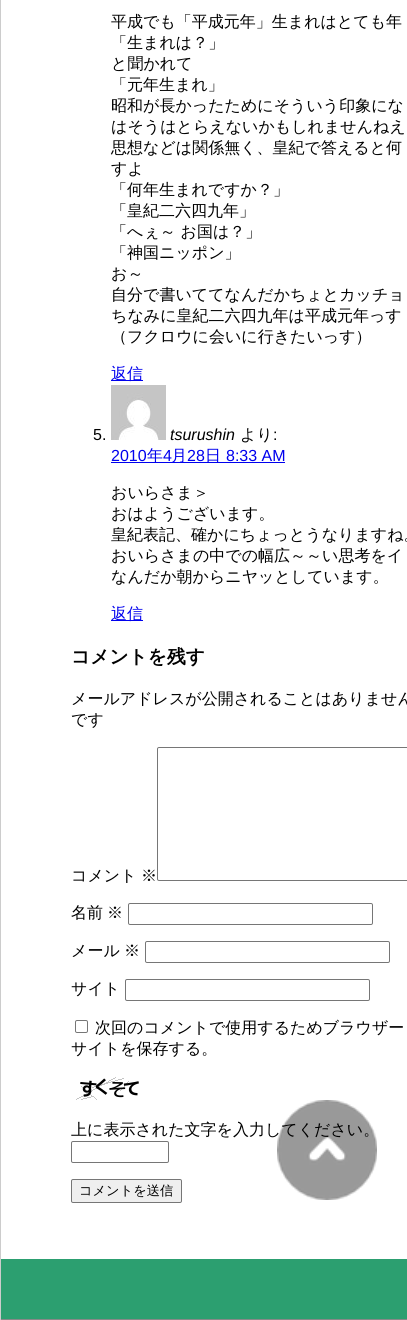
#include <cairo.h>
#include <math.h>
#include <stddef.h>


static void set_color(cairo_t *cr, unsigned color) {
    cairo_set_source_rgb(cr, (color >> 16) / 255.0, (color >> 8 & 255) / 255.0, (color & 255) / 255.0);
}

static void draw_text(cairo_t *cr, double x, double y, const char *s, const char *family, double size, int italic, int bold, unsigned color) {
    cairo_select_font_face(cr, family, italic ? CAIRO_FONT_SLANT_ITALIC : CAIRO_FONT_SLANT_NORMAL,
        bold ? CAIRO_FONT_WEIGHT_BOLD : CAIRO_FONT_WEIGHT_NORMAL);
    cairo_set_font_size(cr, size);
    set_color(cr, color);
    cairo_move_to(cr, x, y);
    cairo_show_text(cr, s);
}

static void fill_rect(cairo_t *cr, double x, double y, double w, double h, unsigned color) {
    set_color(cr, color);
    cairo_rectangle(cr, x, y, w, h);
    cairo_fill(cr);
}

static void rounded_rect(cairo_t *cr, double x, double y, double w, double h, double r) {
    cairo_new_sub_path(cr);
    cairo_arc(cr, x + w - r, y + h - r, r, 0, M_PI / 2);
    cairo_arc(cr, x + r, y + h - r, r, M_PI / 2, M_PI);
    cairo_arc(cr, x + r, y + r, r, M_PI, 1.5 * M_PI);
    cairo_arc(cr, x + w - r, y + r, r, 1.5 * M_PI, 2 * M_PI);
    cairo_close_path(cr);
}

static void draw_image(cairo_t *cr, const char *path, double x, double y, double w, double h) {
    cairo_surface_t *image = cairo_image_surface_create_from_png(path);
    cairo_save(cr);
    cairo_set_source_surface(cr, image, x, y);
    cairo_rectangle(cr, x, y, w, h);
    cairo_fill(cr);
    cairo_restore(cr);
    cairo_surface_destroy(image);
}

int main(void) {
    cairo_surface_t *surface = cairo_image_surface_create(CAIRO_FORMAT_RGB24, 407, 1320);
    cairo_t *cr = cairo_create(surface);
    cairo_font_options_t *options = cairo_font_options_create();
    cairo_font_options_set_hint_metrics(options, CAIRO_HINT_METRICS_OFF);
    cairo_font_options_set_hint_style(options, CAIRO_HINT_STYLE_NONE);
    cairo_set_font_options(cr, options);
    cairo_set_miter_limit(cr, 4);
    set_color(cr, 0xFFFFFF);
    cairo_paint(cr);
    fill_rect(cr, 0, 1319, 407, 1, 0x888888);
    fill_rect(cr, 0, 0, 1, 1320, 0xCCCCCC);
    draw_text(cr, 111, 27, "平成でも「平成元年」生まれはとても年", "WenQuanYi Zen Hei Medium", 16, 0, 0, 0x000000);
    draw_text(cr, 111, 48, "「生まれは？」", "WenQuanYi Zen Hei Medium", 16, 0, 0, 0x000000);
    draw_text(cr, 111, 69, "と聞かれて", "WenQuanYi Zen Hei Medium", 16, 0, 0, 0x000000);
    draw_text(cr, 111, 90, "「元年生まれ」", "WenQuanYi Zen Hei Medium", 16, 0, 0, 0x000000);
    draw_text(cr, 111, 111, "昭和が長かったためにそういう印象にな", "WenQuanYi Zen Hei Medium", 16, 0, 0, 0x000000);
    draw_text(cr, 111, 132, "はそうはとらえないかもしれませんねえ", "WenQuanYi Zen Hei Medium", 16, 0, 0, 0x000000);
    draw_text(cr, 111, 153, "思想などは関係無く、皇紀で答えると何", "WenQuanYi Zen Hei Medium", 16, 0, 0, 0x000000);
    draw_text(cr, 111, 174, "すよ", "WenQuanYi Zen Hei Medium", 16, 0, 0, 0x000000);
    draw_text(cr, 111, 195, "「何年生まれですか？」", "WenQuanYi Zen Hei Medium", 16, 0, 0, 0x000000);
    draw_text(cr, 111, 216, "「皇紀二六四九年」", "WenQuanYi Zen Hei Medium", 16, 0, 0, 0x000000);
    draw_text(cr, 111, 237, "「へぇ～ お国は？」", "WenQuanYi Zen Hei Medium", 16, 0, 0, 0x000000);
    draw_text(cr, 111, 258, "「神国ニッポン」", "WenQuanYi Zen Hei Medium", 16, 0, 0, 0x000000);
    draw_text(cr, 111, 279, "お～", "WenQuanYi Zen Hei Medium", 16, 0, 0, 0x000000);
    draw_text(cr, 111, 300, "自分で書いててなんだかちょとカッチョ", "WenQuanYi Zen Hei Medium", 16, 0, 0, 0x000000);
    draw_text(cr, 111, 321, "ちなみに皇紀二六四九年は平成元年っす", "WenQuanYi Zen Hei Medium", 16, 0, 0, 0x000000);
    draw_text(cr, 111, 342, "（フクロウに会いに行きたいっす）", "WenQuanYi Zen Hei Medium", 16, 0, 0, 0x000000);
    fill_rect(cr, 111, 380, 32, 1, 0x0000EE);
    draw_text(cr, 111, 379, "返信", "WenQuanYi Zen Hei Medium", 16, 0, 0, 0x0000EE);
    draw_text(cr, 93, 440, "5.", "Liberation Sans", 16, 0, 0, 0x000000);
    draw_image(cr, "assets/img1.png", 111, 385, 55, 55);
    draw_text(cr, 170, 440, "tsurushin", "Liberation Sans", 16, 1, 0, 0x000000);
    draw_text(cr, 240, 440, "より", "WenQuanYi Zen Hei Medium", 16, 0, 0, 0x000000);
    draw_text(cr, 273, 440, ":", "Liberation Sans", 16, 0, 0, 0x000000);
    draw_text(cr, 111, 461, "2010", "Liberation Sans", 16, 0, 0, 0x0000EE);
    fill_rect(cr, 111, 462, 174, 1, 0x0000EE);
    draw_text(cr, 147, 461, "年", "WenQuanYi Zen Hei Medium", 16, 0, 0, 0x0000EE);
    draw_text(cr, 163, 461, "4", "Liberation Sans", 16, 0, 0, 0x0000EE);
    draw_text(cr, 171, 461, "月", "WenQuanYi Zen Hei Medium", 16, 0, 0, 0x0000EE);
    draw_text(cr, 187, 461, "28", "Liberation Sans", 16, 0, 0, 0x0000EE);
    draw_text(cr, 205, 461, "日", "WenQuanYi Zen Hei Medium", 16, 0, 0, 0x0000EE);
    draw_text(cr, 226, 461, "8:33 AM", "Liberation Sans", 16, 0, 0, 0x0000EE);
    draw_text(cr, 111, 498, "おいらさま＞", "WenQuanYi Zen Hei Medium", 16, 0, 0, 0x000000);
    draw_text(cr, 111, 519, "おはようございます。", "WenQuanYi Zen Hei Medium", 16, 0, 0, 0x000000);
    draw_text(cr, 111, 540, "皇紀表記、確かにちょっとうなりますね。", "WenQuanYi Zen Hei Medium", 16, 0, 0, 0x000000);
    draw_text(cr, 111, 561, "おいらさまの中での幅広～～い思考をイ", "WenQuanYi Zen Hei Medium", 16, 0, 0, 0x000000);
    draw_text(cr, 111, 582, "なんだか朝からニヤッとしています。", "WenQuanYi Zen Hei Medium", 16, 0, 0, 0x000000);
    fill_rect(cr, 111, 620, 32, 1, 0x0000EE);
    draw_text(cr, 111, 619, "返信", "WenQuanYi Zen Hei Medium", 16, 0, 0, 0x0000EE);
    draw_text(cr, 71, 663, "コメントを残す", "WenQuanYi Zen Hei", 18.75, 0, 1, 0x000000);
    draw_text(cr, 71, 704, "メールアドレスが公開されることはありません", "WenQuanYi Zen Hei Medium", 16, 0, 0, 0x000000);
    draw_text(cr, 71, 725, "です", "WenQuanYi Zen Hei Medium", 16, 0, 0, 0x000000);
    draw_text(cr, 71, 881, "コメント", "WenQuanYi Zen Hei Medium", 16, 0, 0, 0x000000);
    draw_text(cr, 141, 881, "※", "WenQuanYi Zen Hei Medium", 16, 0, 0, 0x000000);
    rounded_rect(cr, 157.5, 747.5, 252, 133, 1.5);
    set_color(cr, 0x767676);
    cairo_set_line_width(cr, 1);
    cairo_stroke(cr);
    draw_text(cr, 71, 918, "名前", "WenQuanYi Zen Hei Medium", 16, 0, 0, 0x000000);
    draw_text(cr, 107, 918, "※", "WenQuanYi Zen Hei Medium", 16, 0, 0, 0x000000);
    rounded_rect(cr, 128.5, 903.5, 244, 21, 1.5);
    set_color(cr, 0x767676);
    cairo_stroke(cr);
    draw_text(cr, 71, 956, "メール", "WenQuanYi Zen Hei Medium", 16, 0, 0, 0x000000);
    draw_text(cr, 124, 956, "※", "WenQuanYi Zen Hei Medium", 16, 0, 0, 0x000000);
    rounded_rect(cr, 145.5, 941.5, 244, 21, 1.5);
    set_color(cr, 0x767676);
    cairo_stroke(cr);
    draw_text(cr, 71, 994, "サイト", "WenQuanYi Zen Hei Medium", 16, 0, 0, 0x000000);
    rounded_rect(cr, 125.5, 979.5, 244, 21, 1.5);
    set_color(cr, 0x767676);
    cairo_stroke(cr);
    rounded_rect(cr, 75.5, 1020.5, 12, 12, 1.5);
    cairo_stroke(cr);
    draw_text(cr, 95, 1033, "次回のコメントで使用するためブラウザー", "WenQuanYi Zen Hei Medium", 16, 0, 0, 0x000000);
    draw_text(cr, 71, 1054, "サイトを保存する。", "WenQuanYi Zen Hei Medium", 16, 0, 0, 0x000000);
    draw_image(cr, "assets/img2.png", 76, 1077, 63, 23);
    draw_text(cr, 71, 1135, "上に表示された文字を入力してください。", "WenQuanYi Zen Hei Medium", 16, 0, 0, 0x000000);
    rounded_rect(cr, 71.5, 1141.5, 97, 21, 1.5);
    set_color(cr, 0x767676);
    cairo_stroke(cr);
    set_color(cr, 0xEFEFEF);
    rounded_rect(cr, 71.5, 1179.5, 110, 23, 1.5);
    cairo_fill_preserve(cr);
    set_color(cr, 0x767676);
    cairo_stroke(cr);
    draw_text(cr, 79, 1195, "コメントを送信", "WenQuanYi Zen Hei Medium", 13.25, 0, 0, 0x000000);
    fill_rect(cr, 1, 1259, 406, 60, 0x2C9F70);
    draw_image(cr, "assets/img3.png", 277, 1100, 100, 100);
    cairo_surface_write_to_png(surface, "output.png");
    cairo_font_options_destroy(options);
    cairo_destroy(cr);
    cairo_surface_destroy(surface);
    return 0;
}
